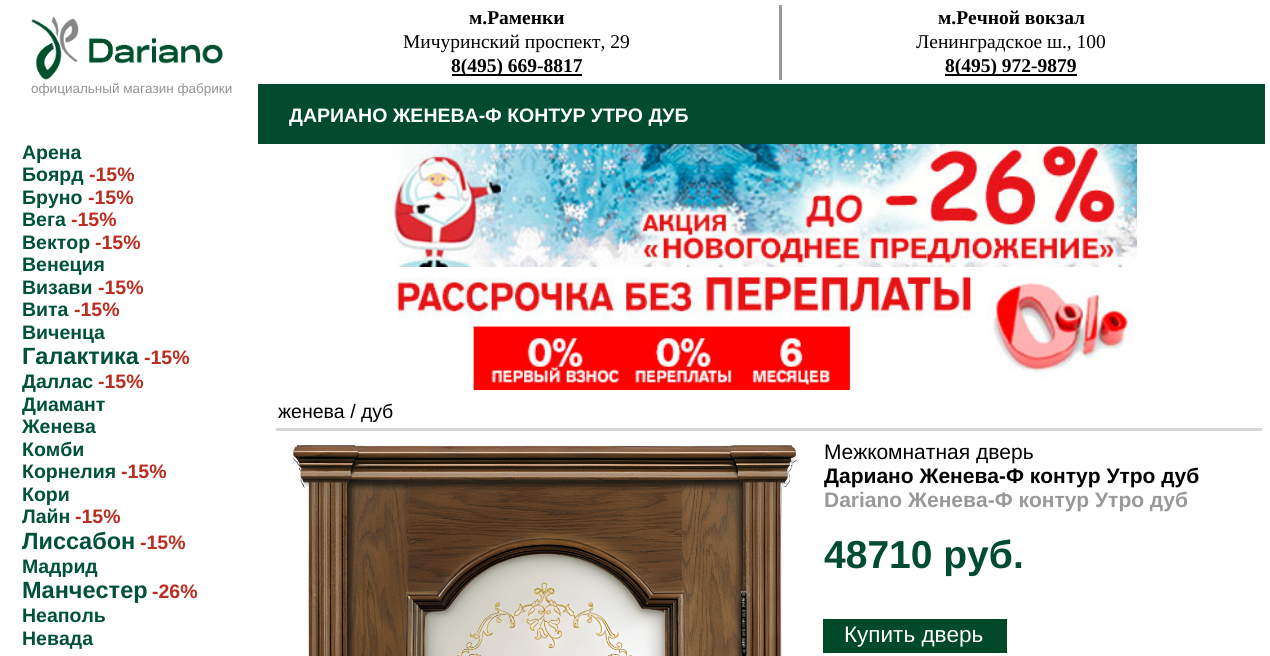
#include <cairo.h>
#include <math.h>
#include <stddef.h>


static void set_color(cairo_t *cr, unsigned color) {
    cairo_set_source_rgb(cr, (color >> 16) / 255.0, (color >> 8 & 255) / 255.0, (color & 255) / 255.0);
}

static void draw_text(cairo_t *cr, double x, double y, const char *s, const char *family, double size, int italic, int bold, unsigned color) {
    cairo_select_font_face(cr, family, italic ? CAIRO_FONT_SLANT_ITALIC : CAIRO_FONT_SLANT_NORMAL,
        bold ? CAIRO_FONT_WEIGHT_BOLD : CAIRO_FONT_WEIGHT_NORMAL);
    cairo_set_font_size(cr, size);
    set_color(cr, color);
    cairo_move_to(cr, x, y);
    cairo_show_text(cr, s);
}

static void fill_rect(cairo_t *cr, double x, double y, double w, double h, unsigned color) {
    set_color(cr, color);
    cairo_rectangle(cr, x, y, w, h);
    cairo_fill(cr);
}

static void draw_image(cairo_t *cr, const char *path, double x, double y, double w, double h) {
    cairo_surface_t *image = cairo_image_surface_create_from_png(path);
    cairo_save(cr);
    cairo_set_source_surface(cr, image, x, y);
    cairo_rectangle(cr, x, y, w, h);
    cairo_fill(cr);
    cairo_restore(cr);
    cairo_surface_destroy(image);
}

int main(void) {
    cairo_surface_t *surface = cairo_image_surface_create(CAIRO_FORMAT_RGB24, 1270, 656);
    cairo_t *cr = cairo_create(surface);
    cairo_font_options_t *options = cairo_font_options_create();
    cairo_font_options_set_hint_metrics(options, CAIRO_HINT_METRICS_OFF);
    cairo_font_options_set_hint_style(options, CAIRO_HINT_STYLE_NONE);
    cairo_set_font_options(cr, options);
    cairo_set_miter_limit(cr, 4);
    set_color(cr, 0xFFFFFF);
    cairo_paint(cr);
    draw_image(cr, "assets/img1.png", 31, 16, 192, 64);
    draw_text(cr, 31, 93, "официальный магазин фабрики", "Liberation Sans", 13.5, 0, 0, 0x939393);
    draw_text(cr, 22, 159, "Арена", "Liberation Sans", 19.5, 0, 1, 0x00513A);
    draw_text(cr, 22, 181, "Боярд", "Liberation Sans", 19.5, 0, 1, 0x00513A);
    draw_text(cr, 89, 181, "-15%", "Liberation Sans", 19.5, 0, 1, 0xBB2D21);
    draw_text(cr, 22, 204, "Бруно", "Liberation Sans", 19.5, 0, 1, 0x00513A);
    draw_text(cr, 88, 204, "-15%", "Liberation Sans", 19.5, 0, 1, 0xBB2D21);
    draw_text(cr, 22, 226, "Вега", "Liberation Sans", 19.5, 0, 1, 0x00513A);
    draw_text(cr, 71, 226, "-15%", "Liberation Sans", 19.5, 0, 1, 0xBB2D21);
    draw_text(cr, 22, 249, "Вектор", "Liberation Sans", 19.5, 0, 1, 0x00513A);
    draw_text(cr, 95, 249, "-15%", "Liberation Sans", 19.5, 0, 1, 0xBB2D21);
    draw_text(cr, 22, 271, "Венеция", "Liberation Sans", 19.5, 0, 1, 0x00513A);
    draw_text(cr, 22, 294, "Визави", "Liberation Sans", 19.5, 0, 1, 0x00513A);
    draw_text(cr, 98, 294, "-15%", "Liberation Sans", 19.5, 0, 1, 0xBB2D21);
    draw_text(cr, 22, 316, "Вита", "Liberation Sans", 19.5, 0, 1, 0x00513A);
    draw_text(cr, 74, 316, "-15%", "Liberation Sans", 19.5, 0, 1, 0xBB2D21);
    draw_text(cr, 22, 339, "Виченца", "Liberation Sans", 19.5, 0, 1, 0x00513A);
    draw_text(cr, 22, 364, "Галактика", "Liberation Sans", 23.5, 0, 1, 0x00513A);
    draw_text(cr, 144, 364, "-15%", "Liberation Sans", 19.5, 0, 1, 0xBB2D21);
    draw_text(cr, 22, 388, "Даллас", "Liberation Sans", 19.5, 0, 1, 0x00513A);
    draw_text(cr, 98, 388, "-15%", "Liberation Sans", 19.5, 0, 1, 0xBB2D21);
    draw_text(cr, 22, 411, "Диамант", "Liberation Sans", 19.5, 0, 1, 0x00513A);
    draw_text(cr, 22, 433, "Женева", "Liberation Sans", 19.5, 0, 1, 0x00513A);
    draw_text(cr, 22, 456, "Комби", "Liberation Sans", 19.5, 0, 1, 0x00513A);
    draw_text(cr, 22, 478, "Корнелия", "Liberation Sans", 19.5, 0, 1, 0x00513A);
    draw_text(cr, 121, 478, "-15%", "Liberation Sans", 19.5, 0, 1, 0xBB2D21);
    draw_text(cr, 22, 501, "Кори", "Liberation Sans", 19.5, 0, 1, 0x00513A);
    draw_text(cr, 22, 523, "Лайн", "Liberation Sans", 19.5, 0, 1, 0x00513A);
    draw_text(cr, 75, 523, "-15%", "Liberation Sans", 19.5, 0, 1, 0xBB2D21);
    draw_text(cr, 22, 549, "Лиссабон", "Liberation Sans", 23.5, 0, 1, 0x00513A);
    draw_text(cr, 140, 549, "-15%", "Liberation Sans", 19.5, 0, 1, 0xBB2D21);
    draw_text(cr, 22, 573, "Мадрид", "Liberation Sans", 19.5, 0, 1, 0x00513A);
    draw_text(cr, 22, 598, "Манчестер", "Liberation Sans", 23.5, 0, 1, 0x00513A);
    draw_text(cr, 152, 598, "-26%", "Liberation Sans", 19.5, 0, 1, 0xBB2D21);
    draw_text(cr, 22, 622, "Неаполь", "Liberation Sans", 19.5, 0, 1, 0x00513A);
    draw_text(cr, 22, 645, "Невада", "Liberation Sans", 19.5, 0, 1, 0x00513A);
    fill_rect(cr, 779, 5, 3, 75, 0x999999);
    draw_text(cr, 469, 24, "м.Раменки", "Liberation Serif", 19.5, 0, 1, 0x000000);
    draw_text(cr, 403, 48, "Мичуринский проспект, 29", "Liberation Serif", 19.5, 0, 0, 0x000000);
    fill_rect(cr, 452, 74, 130, 2, 0x000000);
    draw_text(cr, 451, 72, "8(495) 669-8817", "Liberation Serif", 19.5, 0, 1, 0x000000);
    draw_text(cr, 938, 24, "м.Речной вокзал", "Liberation Serif", 19.5, 0, 1, 0x000000);
    draw_text(cr, 916, 48, "Ленинградское ш., 100", "Liberation Serif", 19.5, 0, 0, 0x000000);
    fill_rect(cr, 945, 74, 132, 2, 0x000000);
    draw_text(cr, 945, 72, "8(495) 972-9879", "Liberation Serif", 19.5, 0, 1, 0x000000);
    fill_rect(cr, 258, 84, 1007, 60, 0x004A2F);
    draw_text(cr, 289, 122, "ДАРИАНО ЖЕНЕВА-Ф КОНТУР УТРО ДУБ", "Liberation Sans", 19.5, 0, 1, 0xFFFFFF);
    draw_image(cr, "assets/img2.png", 387, 144, 750, 123);
    draw_image(cr, "assets/img3.png", 397, 277, 735, 113);
    fill_rect(cr, 276, 428, 986, 3, 0xD7D7D7);
    draw_text(cr, 278, 418, "женева / дуб", "Liberation Sans", 19.5, 0, 0, 0x000000);
    draw_image(cr, "assets/img4.png", 292, 445, 505, 211);
    draw_text(cr, 824, 459, "Межкомнатная дверь", "Liberation Sans", 21, 0, 0, 0x000000);
    draw_text(cr, 824, 483, "Дариано Женева-Ф контур Утро дуб", "Liberation Sans", 21, 0, 1, 0x000000);
    draw_text(cr, 824, 507, "Dariano Женева-Ф контур Утро дуб", "Liberation Sans", 21, 0, 1, 0x999999);
    draw_text(cr, 824, 568, "48710 руб.", "Liberation Sans", 39, 0, 1, 0x004B34);
    fill_rect(cr, 823, 619, 184, 34, 0x004929);
    draw_text(cr, 844, 642, "Купить дверь", "Liberation Sans", 22.5, 0, 0, 0xFFFFFF);
    cairo_surface_write_to_png(surface, "output.png");
    cairo_font_options_destroy(options);
    cairo_destroy(cr);
    cairo_surface_destroy(surface);
    return 0;
}
